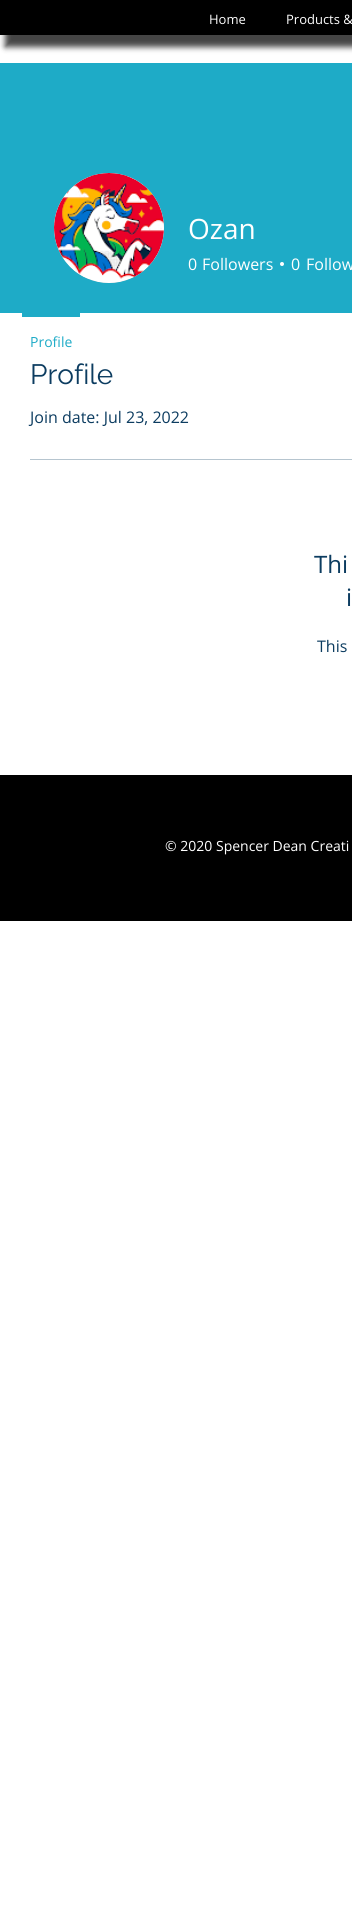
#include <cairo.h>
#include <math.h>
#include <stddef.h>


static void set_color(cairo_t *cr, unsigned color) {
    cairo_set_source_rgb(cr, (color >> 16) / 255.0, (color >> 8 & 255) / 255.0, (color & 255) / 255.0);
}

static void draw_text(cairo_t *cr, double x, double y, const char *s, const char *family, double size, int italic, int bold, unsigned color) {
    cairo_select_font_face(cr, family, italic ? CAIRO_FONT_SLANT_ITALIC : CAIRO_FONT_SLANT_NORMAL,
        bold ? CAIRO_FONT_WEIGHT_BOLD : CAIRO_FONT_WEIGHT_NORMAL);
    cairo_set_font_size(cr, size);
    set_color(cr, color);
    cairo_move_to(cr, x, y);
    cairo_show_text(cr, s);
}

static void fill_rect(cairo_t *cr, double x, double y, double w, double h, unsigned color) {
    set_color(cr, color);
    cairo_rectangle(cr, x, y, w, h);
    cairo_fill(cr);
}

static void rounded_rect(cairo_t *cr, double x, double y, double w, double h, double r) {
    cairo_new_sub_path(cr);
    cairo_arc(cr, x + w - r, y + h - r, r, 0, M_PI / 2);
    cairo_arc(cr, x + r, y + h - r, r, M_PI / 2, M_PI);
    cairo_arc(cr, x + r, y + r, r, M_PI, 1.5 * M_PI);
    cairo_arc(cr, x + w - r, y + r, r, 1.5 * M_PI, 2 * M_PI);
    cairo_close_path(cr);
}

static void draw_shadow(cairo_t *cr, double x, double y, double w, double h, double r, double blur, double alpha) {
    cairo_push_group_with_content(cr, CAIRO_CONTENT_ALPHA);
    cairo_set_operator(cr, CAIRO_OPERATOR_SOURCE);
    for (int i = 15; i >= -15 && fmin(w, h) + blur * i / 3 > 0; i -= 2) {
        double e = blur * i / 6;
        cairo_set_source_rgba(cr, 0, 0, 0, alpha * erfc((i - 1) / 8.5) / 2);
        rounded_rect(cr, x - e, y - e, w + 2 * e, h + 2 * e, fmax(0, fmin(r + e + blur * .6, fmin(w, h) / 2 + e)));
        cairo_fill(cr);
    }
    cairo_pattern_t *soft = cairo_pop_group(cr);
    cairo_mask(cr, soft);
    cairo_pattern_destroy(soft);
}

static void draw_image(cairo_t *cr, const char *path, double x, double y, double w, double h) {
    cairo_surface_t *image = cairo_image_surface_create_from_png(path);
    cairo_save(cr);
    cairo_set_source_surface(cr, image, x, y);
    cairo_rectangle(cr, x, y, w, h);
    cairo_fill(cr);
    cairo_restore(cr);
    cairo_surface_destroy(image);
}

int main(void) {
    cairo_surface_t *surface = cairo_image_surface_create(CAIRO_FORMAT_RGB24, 352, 1914);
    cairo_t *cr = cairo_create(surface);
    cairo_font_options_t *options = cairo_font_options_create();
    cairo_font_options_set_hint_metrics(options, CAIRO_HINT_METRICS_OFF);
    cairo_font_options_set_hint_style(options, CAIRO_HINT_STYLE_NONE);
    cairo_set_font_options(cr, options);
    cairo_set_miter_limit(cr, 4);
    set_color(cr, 0xFFFFFF);
    cairo_paint(cr);
    set_color(cr, 0x000000);
    draw_shadow(cr, 5, 12, 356, 35, 0, 3, 0.73);
    fill_rect(cr, 0, 0, 352, 35, 0x000000);
    draw_text(cr, 209, 24, "Home", "Open Sans", 13, 0, 0, 0xFFFFFF);
    draw_text(cr, 286, 24, "Products &", "Open Sans", 13, 0, 0, 0xFFFFFF);
    fill_rect(cr, 0, 63, 352, 250, 0x1EABC7);
    set_color(cr, 0xD8D8D8);
    cairo_new_path(cr);
    cairo_arc(cr, 109, 228, 55, 0, 2 * M_PI);
    cairo_fill(cr);
    draw_image(cr, "assets/img1.png", 54, 173, 110, 110);
    draw_text(cr, 188, 239, "Ozan", "Open Sans", 28, 0, 0, 0xFFFFFF);
    draw_text(cr, 188, 270, "0", "Open Sans", 16, 0, 0, 0xFFFFFF);
    draw_text(cr, 202, 270, "Followers", "Open Sans", 16, 0, 0, 0xFFFFFF);
    cairo_new_path(cr);
    cairo_arc(cr, 282, 264, 2, 0, 2 * M_PI);
    cairo_fill(cr);
    draw_text(cr, 291, 270, "0", "Open Sans", 16, 0, 0, 0xFFFFFF);
    draw_text(cr, 306, 270, "Follow", "Open Sans", 16, 0, 0, 0xFFFFFF);
    fill_rect(cr, 22, 313, 58, 4, 0x1EABC7);
    draw_text(cr, 30, 347, "Profile", "Open Sans", 14, 0, 0, 0x1EABC7);
    draw_text(cr, 30, 384, "Profile", "Raleway", 28, 0, 0, 0x0C3C60);
    draw_text(cr, 30, 423, "Join date: Jul 23, 2022", "Open Sans", 16, 0, 0, 0x0C3C60);
    fill_rect(cr, 30, 459, 322, 1, 0xB6C5CF);
    draw_text(cr, 314, 573, "Thi", "Open Sans", 24, 0, 0, 0x0C3C60);
    draw_text(cr, 346, 606, "i", "Open Sans", 24, 0, 0, 0x0C3C60);
    draw_text(cr, 317, 652, "This", "Open Sans", 16, 0, 0, 0x0C3C60);
    fill_rect(cr, 0, 775, 352, 146, 0x000000);
    draw_text(cr, 165, 851, "© 2020 Spencer Dean Creati", "Open Sans", 14, 0, 0, 0xFFFFFF);
    cairo_surface_write_to_png(surface, "output.png");
    cairo_font_options_destroy(options);
    cairo_destroy(cr);
    cairo_surface_destroy(surface);
    return 0;
}
